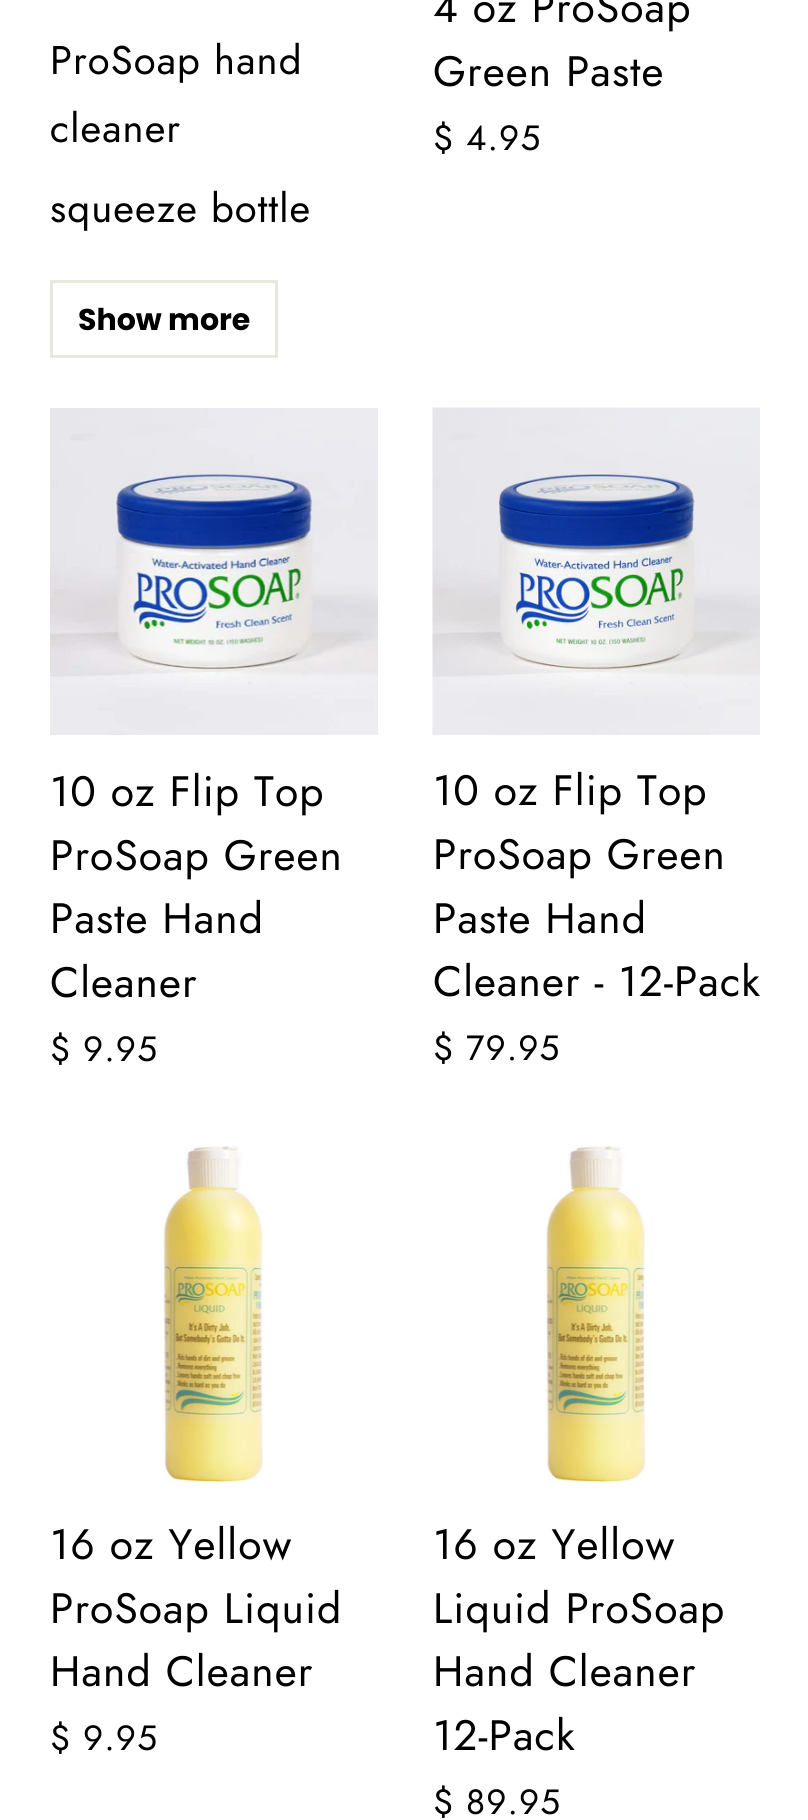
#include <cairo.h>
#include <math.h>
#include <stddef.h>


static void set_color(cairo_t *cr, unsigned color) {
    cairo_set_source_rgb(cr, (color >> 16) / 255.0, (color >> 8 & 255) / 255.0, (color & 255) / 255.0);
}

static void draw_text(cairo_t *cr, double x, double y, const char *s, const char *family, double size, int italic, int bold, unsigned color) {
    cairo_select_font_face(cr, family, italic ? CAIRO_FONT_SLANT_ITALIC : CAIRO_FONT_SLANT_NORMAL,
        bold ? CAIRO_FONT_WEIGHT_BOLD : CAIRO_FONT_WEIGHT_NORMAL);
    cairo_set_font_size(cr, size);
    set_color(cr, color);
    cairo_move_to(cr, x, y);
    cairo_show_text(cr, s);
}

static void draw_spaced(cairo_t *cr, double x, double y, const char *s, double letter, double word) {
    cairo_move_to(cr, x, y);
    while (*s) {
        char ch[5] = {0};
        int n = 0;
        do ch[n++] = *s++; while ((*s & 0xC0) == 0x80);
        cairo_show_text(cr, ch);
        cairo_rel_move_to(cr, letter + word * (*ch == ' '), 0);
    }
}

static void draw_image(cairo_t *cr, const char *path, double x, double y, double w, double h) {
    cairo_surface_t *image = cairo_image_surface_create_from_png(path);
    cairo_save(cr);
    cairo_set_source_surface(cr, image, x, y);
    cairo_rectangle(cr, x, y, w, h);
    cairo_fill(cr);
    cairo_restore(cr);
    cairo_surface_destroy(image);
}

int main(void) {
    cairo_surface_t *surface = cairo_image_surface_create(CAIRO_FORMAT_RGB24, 808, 1820);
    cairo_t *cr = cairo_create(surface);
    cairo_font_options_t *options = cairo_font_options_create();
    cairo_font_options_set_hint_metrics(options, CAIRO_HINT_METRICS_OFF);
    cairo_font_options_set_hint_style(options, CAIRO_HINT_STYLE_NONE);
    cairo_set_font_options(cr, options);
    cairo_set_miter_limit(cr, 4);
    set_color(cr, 0xFFFFFF);
    cairo_paint(cr);
    cairo_select_font_face(cr, "Jost", CAIRO_FONT_SLANT_NORMAL, CAIRO_FONT_WEIGHT_NORMAL);
    cairo_set_font_size(cr, 40);
    set_color(cr, 0x000000);
    draw_spaced(cr, 50, 74, "ProSoap hand", 1.1, 0);
    draw_spaced(cr, 50, 142, "cleaner", 1.1, 0);
    draw_spaced(cr, 50, 222, "squeeze bottle", 1.1, 0);
    cairo_rectangle(cr, 51.5, 281.5, 225, 75);
    set_color(cr, 0xE8E8E1);
    cairo_set_line_width(cr, 3);
    cairo_stroke(cr);
    draw_text(cr, 78, 330, "Show more", "Poppins", 30, 0, 1, 0x000000);
    cairo_select_font_face(cr, "Jost", CAIRO_FONT_SLANT_NORMAL, CAIRO_FONT_WEIGHT_NORMAL);
    cairo_set_font_size(cr, 42.5);
    draw_spaced(cr, 433, 22, "4 oz ProSoap", 1.1, 0);
    draw_spaced(cr, 433, 86, "Green Paste", 1.1, 0);
    cairo_set_font_size(cr, 35);
    draw_spaced(cr, 433, 150, "$ 4.95", 1.1, 0);
    draw_image(cr, "assets/img1.png", 50, 408, 328, 327);
    cairo_set_font_size(cr, 42.5);
    draw_spaced(cr, 50, 806, "10 oz Flip Top", 1.1, 0);
    draw_spaced(cr, 50, 870, "ProSoap Green", 1.1, 0);
    draw_spaced(cr, 50, 933, "Paste Hand", 1.1, 0);
    draw_spaced(cr, 50, 997, "Cleaner", 1.1, 0);
    cairo_set_font_size(cr, 35);
    draw_spaced(cr, 50, 1061, "$ 9.95", 1.1, 0);
    draw_image(cr, "assets/img2.png", 432, 407, 328, 328);
    cairo_set_font_size(cr, 42.5);
    draw_spaced(cr, 433, 805, "10 oz Flip Top", 1.1, 0);
    draw_spaced(cr, 433, 869, "ProSoap Green", 1.1, 0);
    draw_spaced(cr, 433, 933, "Paste Hand", 1.1, 0);
    draw_spaced(cr, 433, 996, "Cleaner - 12-Pack", 1.1, 0);
    cairo_set_font_size(cr, 35);
    draw_spaced(cr, 433, 1060, "$ 79.95", 1.1, 0);
    draw_image(cr, "assets/img3.png", 161, 1145, 103, 340);
    cairo_set_font_size(cr, 42.5);
    draw_spaced(cr, 50, 1559, "16 oz Yellow", 1.1, 0);
    draw_spaced(cr, 50, 1623, "ProSoap Liquid", 1.1, 0);
    draw_spaced(cr, 50, 1686, "Hand Cleaner", 1.1, 0);
    cairo_set_font_size(cr, 35);
    draw_spaced(cr, 50, 1750, "$ 9.95", 1.1, 0);
    draw_image(cr, "assets/img4.png", 543, 1145, 103, 340);
    cairo_set_font_size(cr, 42.5);
    draw_spaced(cr, 433, 1559, "16 oz Yellow", 1.1, 0);
    draw_spaced(cr, 433, 1623, "Liquid ProSoap", 1.1, 0);
    draw_spaced(cr, 433, 1686, "Hand Cleaner", 1.1, 0);
    draw_spaced(cr, 433, 1750, "12-Pack", 1.1, 0);
    cairo_set_font_size(cr, 35);
    draw_spaced(cr, 433, 1814, "$ 89.95", 1.1, 0);
    cairo_surface_write_to_png(surface, "output.png");
    cairo_font_options_destroy(options);
    cairo_destroy(cr);
    cairo_surface_destroy(surface);
    return 0;
}
